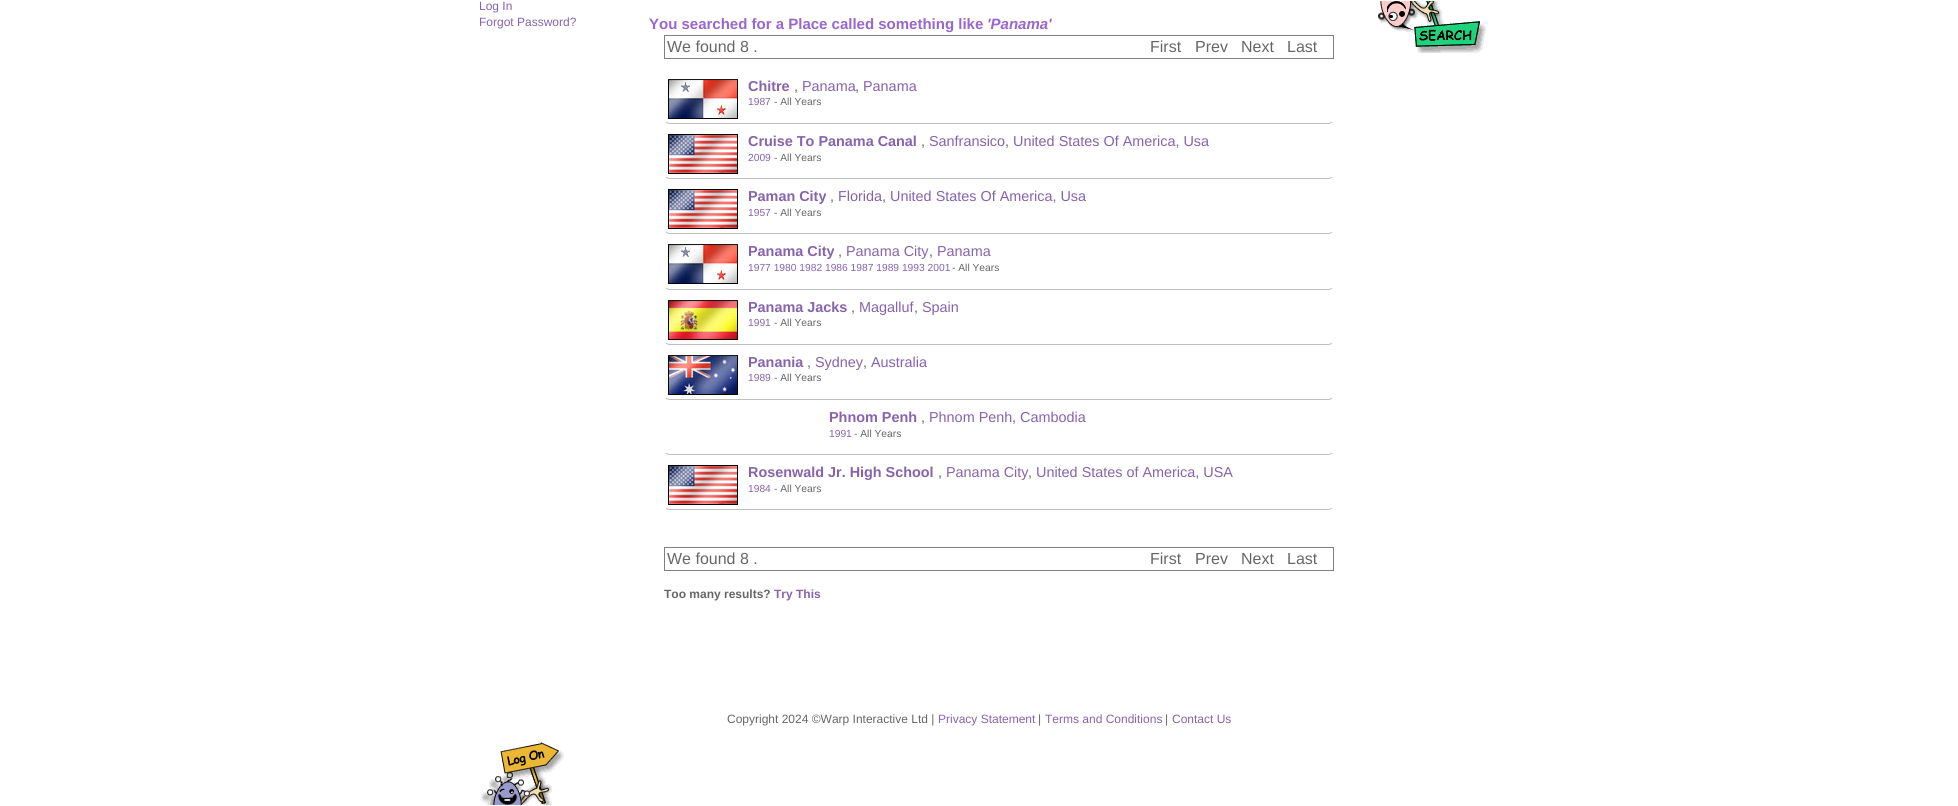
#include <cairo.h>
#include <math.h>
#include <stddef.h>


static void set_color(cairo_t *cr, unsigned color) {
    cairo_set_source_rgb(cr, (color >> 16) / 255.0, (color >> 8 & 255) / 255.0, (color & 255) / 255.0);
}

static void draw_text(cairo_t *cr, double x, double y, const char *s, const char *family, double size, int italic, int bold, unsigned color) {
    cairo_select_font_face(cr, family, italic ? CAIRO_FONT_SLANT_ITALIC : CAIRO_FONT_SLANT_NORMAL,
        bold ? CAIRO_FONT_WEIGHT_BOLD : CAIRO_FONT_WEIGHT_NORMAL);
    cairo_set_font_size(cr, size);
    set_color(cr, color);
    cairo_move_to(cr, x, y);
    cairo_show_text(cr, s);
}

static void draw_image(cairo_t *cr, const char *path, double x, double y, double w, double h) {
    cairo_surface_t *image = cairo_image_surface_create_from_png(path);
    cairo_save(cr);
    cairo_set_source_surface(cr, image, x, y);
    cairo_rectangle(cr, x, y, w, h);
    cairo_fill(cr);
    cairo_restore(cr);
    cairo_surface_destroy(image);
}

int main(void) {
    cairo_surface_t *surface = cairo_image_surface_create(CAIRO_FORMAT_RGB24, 1958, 806);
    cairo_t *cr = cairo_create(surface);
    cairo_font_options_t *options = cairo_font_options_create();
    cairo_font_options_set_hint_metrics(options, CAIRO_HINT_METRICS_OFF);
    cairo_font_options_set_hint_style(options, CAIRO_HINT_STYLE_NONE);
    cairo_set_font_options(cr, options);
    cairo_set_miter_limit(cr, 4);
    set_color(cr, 0xFFFFFF);
    cairo_paint(cr);
    draw_text(cr, 479, 10, "Log In", "Liberation Sans", 12, 0, 0, 0x8762AD);
    draw_text(cr, 479, 26, "Forgot Password?", "Liberation Sans", 12, 0, 0, 0x8762AD);
    draw_image(cr, "assets/img1.png", 481, 742, 83, 63);
    draw_text(cr, 649, 29, "You searched for a Place called something like", "Liberation Sans", 15, 0, 1, 0x9966CC);
    draw_text(cr, 987, 29, "'Panama'", "Liberation Sans", 15, 1, 1, 0x9966CC);
    cairo_rectangle(cr, 664.5, 35.5, 669, 23);
    set_color(cr, 0x808080);
    cairo_set_line_width(cr, 1);
    cairo_stroke(cr);
    draw_text(cr, 667, 52, "We found 8 .", "Liberation Sans", 16, 0, 0, 0x666666);
    draw_text(cr, 1150, 52, "First", "Liberation Sans", 16, 0, 0, 0x666666);
    draw_text(cr, 1195, 52, "Prev", "Liberation Sans", 16, 0, 0, 0x666666);
    draw_text(cr, 1241, 52, "Next", "Liberation Sans", 16, 0, 0, 0x666666);
    draw_text(cr, 1287, 52, "Last", "Liberation Sans", 16, 0, 0, 0x666666);
    cairo_new_path(cr);
    cairo_move_to(cr, 1332, 122);
    cairo_curve_to(cr, 1331, 123, 1329.5, 123.5, 1328, 123.5);
    cairo_line_to(cr, 670, 123.5);
    cairo_curve_to(cr, 668.5, 123.5, 667, 123, 666, 122);
    set_color(cr, 0xC0C0C0);
    cairo_stroke(cr);
    draw_image(cr, "assets/img2.png", 668, 79, 70, 40);
    draw_text(cr, 748, 91, "Chitre", "Liberation Sans", 14.4, 0, 1, 0x8762AD);
    draw_text(cr, 794, 91, ",", "Liberation Sans", 14.4, 0, 0, 0x666666);
    draw_text(cr, 802, 91, "Panama", "Liberation Sans", 14.4, 0, 0, 0x8762AD);
    draw_text(cr, 855, 91, ",", "Liberation Sans", 14.4, 0, 0, 0x666666);
    draw_text(cr, 863, 91, "Panama", "Liberation Sans", 14.4, 0, 0, 0x8762AD);
    draw_text(cr, 748, 105, "1987", "Liberation Sans", 10.25, 0, 0, 0x8762AD);
    draw_text(cr, 774, 105, "- All Years", "Liberation Sans", 10.25, 0, 0, 0x666666);
    cairo_new_path(cr);
    cairo_move_to(cr, 1332, 177);
    cairo_curve_to(cr, 1331, 178, 1329.5, 178.5, 1328, 178.5);
    cairo_line_to(cr, 670, 178.5);
    cairo_curve_to(cr, 668.5, 178.5, 667, 178, 666, 177);
    set_color(cr, 0xC0C0C0);
    cairo_stroke(cr);
    draw_image(cr, "assets/img3.png", 668, 134, 70, 40);
    draw_text(cr, 748, 146, "Cruise To Panama Canal", "Liberation Sans", 14.4, 0, 1, 0x8762AD);
    draw_text(cr, 921, 146, ",", "Liberation Sans", 14.4, 0, 0, 0x666666);
    draw_text(cr, 929, 146, "Sanfransico", "Liberation Sans", 14.4, 0, 0, 0x8762AD);
    draw_text(cr, 1005, 146, ",", "Liberation Sans", 14.4, 0, 0, 0x666666);
    draw_text(cr, 1013, 146, "United States Of America, Usa", "Liberation Sans", 14.4, 0, 0, 0x8762AD);
    draw_text(cr, 748, 161, "2009", "Liberation Sans", 10.25, 0, 0, 0x8762AD);
    draw_text(cr, 774, 161, "- All Years", "Liberation Sans", 10.25, 0, 0, 0x666666);
    cairo_new_path(cr);
    cairo_move_to(cr, 1332, 232);
    cairo_curve_to(cr, 1331, 233, 1329.5, 233.5, 1328, 233.5);
    cairo_line_to(cr, 670, 233.5);
    cairo_curve_to(cr, 668.5, 233.5, 667, 233, 666, 232);
    set_color(cr, 0xC0C0C0);
    cairo_stroke(cr);
    draw_image(cr, "assets/img3.png", 668, 189, 70, 40);
    draw_text(cr, 748, 201, "Paman City", "Liberation Sans", 14.4, 0, 1, 0x8762AD);
    draw_text(cr, 830, 201, ",", "Liberation Sans", 14.4, 0, 0, 0x666666);
    draw_text(cr, 838, 201, "Florida", "Liberation Sans", 14.4, 0, 0, 0x8762AD);
    draw_text(cr, 882, 201, ",", "Liberation Sans", 14.4, 0, 0, 0x666666);
    draw_text(cr, 890, 201, "United States Of America, Usa", "Liberation Sans", 14.4, 0, 0, 0x8762AD);
    draw_text(cr, 748, 216, "1957", "Liberation Sans", 10.25, 0, 0, 0x8762AD);
    draw_text(cr, 774, 216, "- All Years", "Liberation Sans", 10.25, 0, 0, 0x666666);
    cairo_new_path(cr);
    cairo_move_to(cr, 1332, 288);
    cairo_curve_to(cr, 1331, 289, 1329.5, 289.5, 1328, 289.5);
    cairo_line_to(cr, 670, 289.5);
    cairo_curve_to(cr, 668.5, 289.5, 667, 289, 666, 288);
    set_color(cr, 0xC0C0C0);
    cairo_stroke(cr);
    draw_image(cr, "assets/img2.png", 668, 244, 70, 40);
    draw_text(cr, 748, 256, "Panama City", "Liberation Sans", 14.4, 0, 1, 0x8762AD);
    draw_text(cr, 838, 256, ",", "Liberation Sans", 14.4, 0, 0, 0x666666);
    draw_text(cr, 846, 256, "Panama City", "Liberation Sans", 14.4, 0, 0, 0x8762AD);
    draw_text(cr, 929, 256, ",", "Liberation Sans", 14.4, 0, 0, 0x666666);
    draw_text(cr, 937, 256, "Panama", "Liberation Sans", 14.4, 0, 0, 0x8762AD);
    draw_text(cr, 748, 271, "1977 1980 1982 1986 1987 1989 1993 2001", "Liberation Sans", 10.25, 0, 0, 0x8762AD);
    draw_text(cr, 952, 271, "- All Years", "Liberation Sans", 10.25, 0, 0, 0x666666);
    cairo_new_path(cr);
    cairo_move_to(cr, 1332, 343);
    cairo_curve_to(cr, 1331, 344, 1329.5, 344.5, 1328, 344.5);
    cairo_line_to(cr, 670, 344.5);
    cairo_curve_to(cr, 668.5, 344.5, 667, 344, 666, 343);
    set_color(cr, 0xC0C0C0);
    cairo_stroke(cr);
    draw_image(cr, "assets/img4.png", 668, 300, 70, 40);
    draw_text(cr, 748, 312, "Panama Jacks", "Liberation Sans", 14.4, 0, 1, 0x8762AD);
    draw_text(cr, 851, 312, ",", "Liberation Sans", 14.4, 0, 0, 0x666666);
    draw_text(cr, 859, 312, "Magalluf", "Liberation Sans", 14.4, 0, 0, 0x8762AD);
    draw_text(cr, 914, 312, ",", "Liberation Sans", 14.4, 0, 0, 0x666666);
    draw_text(cr, 922, 312, "Spain", "Liberation Sans", 14.4, 0, 0, 0x8762AD);
    draw_text(cr, 748, 326, "1991", "Liberation Sans", 10.25, 0, 0, 0x8762AD);
    draw_text(cr, 774, 326, "- All Years", "Liberation Sans", 10.25, 0, 0, 0x666666);
    cairo_new_path(cr);
    cairo_move_to(cr, 1332, 398);
    cairo_curve_to(cr, 1331, 399, 1329.5, 399.5, 1328, 399.5);
    cairo_line_to(cr, 670, 399.5);
    cairo_curve_to(cr, 668.5, 399.5, 667, 399, 666, 398);
    set_color(cr, 0xC0C0C0);
    cairo_stroke(cr);
    draw_image(cr, "assets/img5.png", 668, 355, 70, 40);
    draw_text(cr, 748, 367, "Panania", "Liberation Sans", 14.4, 0, 1, 0x8762AD);
    draw_text(cr, 807, 367, ",", "Liberation Sans", 14.4, 0, 0, 0x666666);
    draw_text(cr, 815, 367, "Sydney", "Liberation Sans", 14.4, 0, 0, 0x8762AD);
    draw_text(cr, 863, 367, ",", "Liberation Sans", 14.4, 0, 0, 0x666666);
    draw_text(cr, 871, 367, "Australia", "Liberation Sans", 14.4, 0, 0, 0x8762AD);
    draw_text(cr, 748, 381, "1989", "Liberation Sans", 10.25, 0, 0, 0x8762AD);
    draw_text(cr, 774, 381, "- All Years", "Liberation Sans", 10.25, 0, 0, 0x666666);
    cairo_new_path(cr);
    cairo_move_to(cr, 1332, 453);
    cairo_curve_to(cr, 1331, 454, 1329.5, 454.5, 1328, 454.5);
    cairo_line_to(cr, 670, 454.5);
    cairo_curve_to(cr, 668.5, 454.5, 667, 454, 666, 453);
    set_color(cr, 0xC0C0C0);
    cairo_stroke(cr);
    draw_text(cr, 829, 422, "Phnom Penh", "Liberation Sans", 14.4, 0, 1, 0x8762AD);
    draw_text(cr, 921, 422, ",", "Liberation Sans", 14.4, 0, 0, 0x666666);
    draw_text(cr, 929, 422, "Phnom Penh", "Liberation Sans", 14.4, 0, 0, 0x8762AD);
    draw_text(cr, 1012, 422, ",", "Liberation Sans", 14.4, 0, 0, 0x666666);
    draw_text(cr, 1020, 422, "Cambodia", "Liberation Sans", 14.4, 0, 0, 0x8762AD);
    draw_text(cr, 829, 437, "1991", "Liberation Sans", 10.25, 0, 0, 0x8762AD);
    draw_text(cr, 854, 437, "- All Years", "Liberation Sans", 10.25, 0, 0, 0x666666);
    cairo_new_path(cr);
    cairo_move_to(cr, 1332, 508);
    cairo_curve_to(cr, 1331, 509, 1329.5, 509.5, 1328, 509.5);
    cairo_line_to(cr, 670, 509.5);
    cairo_curve_to(cr, 668.5, 509.5, 667, 509, 666, 508);
    set_color(cr, 0xC0C0C0);
    cairo_stroke(cr);
    draw_image(cr, "assets/img3.png", 668, 465, 70, 40);
    draw_text(cr, 748, 477, "Rosenwald Jr. High School", "Liberation Sans", 14.4, 0, 1, 0x8762AD);
    draw_text(cr, 938, 477, ",", "Liberation Sans", 14.4, 0, 0, 0x666666);
    draw_text(cr, 946, 477, "Panama City", "Liberation Sans", 14.4, 0, 0, 0x8762AD);
    draw_text(cr, 1028, 477, ",", "Liberation Sans", 14.4, 0, 0, 0x666666);
    draw_text(cr, 1036, 477, "United States of America, USA", "Liberation Sans", 14.4, 0, 0, 0x8762AD);
    draw_text(cr, 748, 492, "1984", "Liberation Sans", 10.25, 0, 0, 0x8762AD);
    draw_text(cr, 774, 492, "- All Years", "Liberation Sans", 10.25, 0, 0, 0x666666);
    cairo_rectangle(cr, 664.5, 547.5, 669, 23);
    set_color(cr, 0x808080);
    cairo_stroke(cr);
    draw_text(cr, 667, 564, "We found 8 .", "Liberation Sans", 16, 0, 0, 0x666666);
    draw_text(cr, 1150, 564, "First", "Liberation Sans", 16, 0, 0, 0x666666);
    draw_text(cr, 1195, 564, "Prev", "Liberation Sans", 16, 0, 0, 0x666666);
    draw_text(cr, 1241, 564, "Next", "Liberation Sans", 16, 0, 0, 0x666666);
    draw_text(cr, 1287, 564, "Last", "Liberation Sans", 16, 0, 0, 0x666666);
    draw_text(cr, 664, 598, "Too many results?", "Liberation Sans", 12, 0, 1, 0x666666);
    draw_text(cr, 774, 598, "Try This", "Liberation Sans", 12, 0, 1, 0x8762AD);
    draw_image(cr, "assets/img6.png", 1378, 1, 108, 52);
    draw_text(cr, 727, 723, "Copyright 2024 ©Warp Interactive Ltd |", "Liberation Sans", 12, 0, 0, 0x666666);
    draw_text(cr, 938, 723, "Privacy Statement", "Liberation Sans", 12, 0, 0, 0x8762AD);
    draw_text(cr, 1038, 723, "|", "Liberation Sans", 12, 0, 0, 0x666666);
    draw_text(cr, 1045, 723, "Terms and Conditions", "Liberation Sans", 12, 0, 0, 0x8762AD);
    draw_text(cr, 1165, 723, "|", "Liberation Sans", 12, 0, 0, 0x666666);
    draw_text(cr, 1172, 723, "Contact Us", "Liberation Sans", 12, 0, 0, 0x8762AD);
    cairo_surface_write_to_png(surface, "output.png");
    cairo_font_options_destroy(options);
    cairo_destroy(cr);
    cairo_surface_destroy(surface);
    return 0;
}
